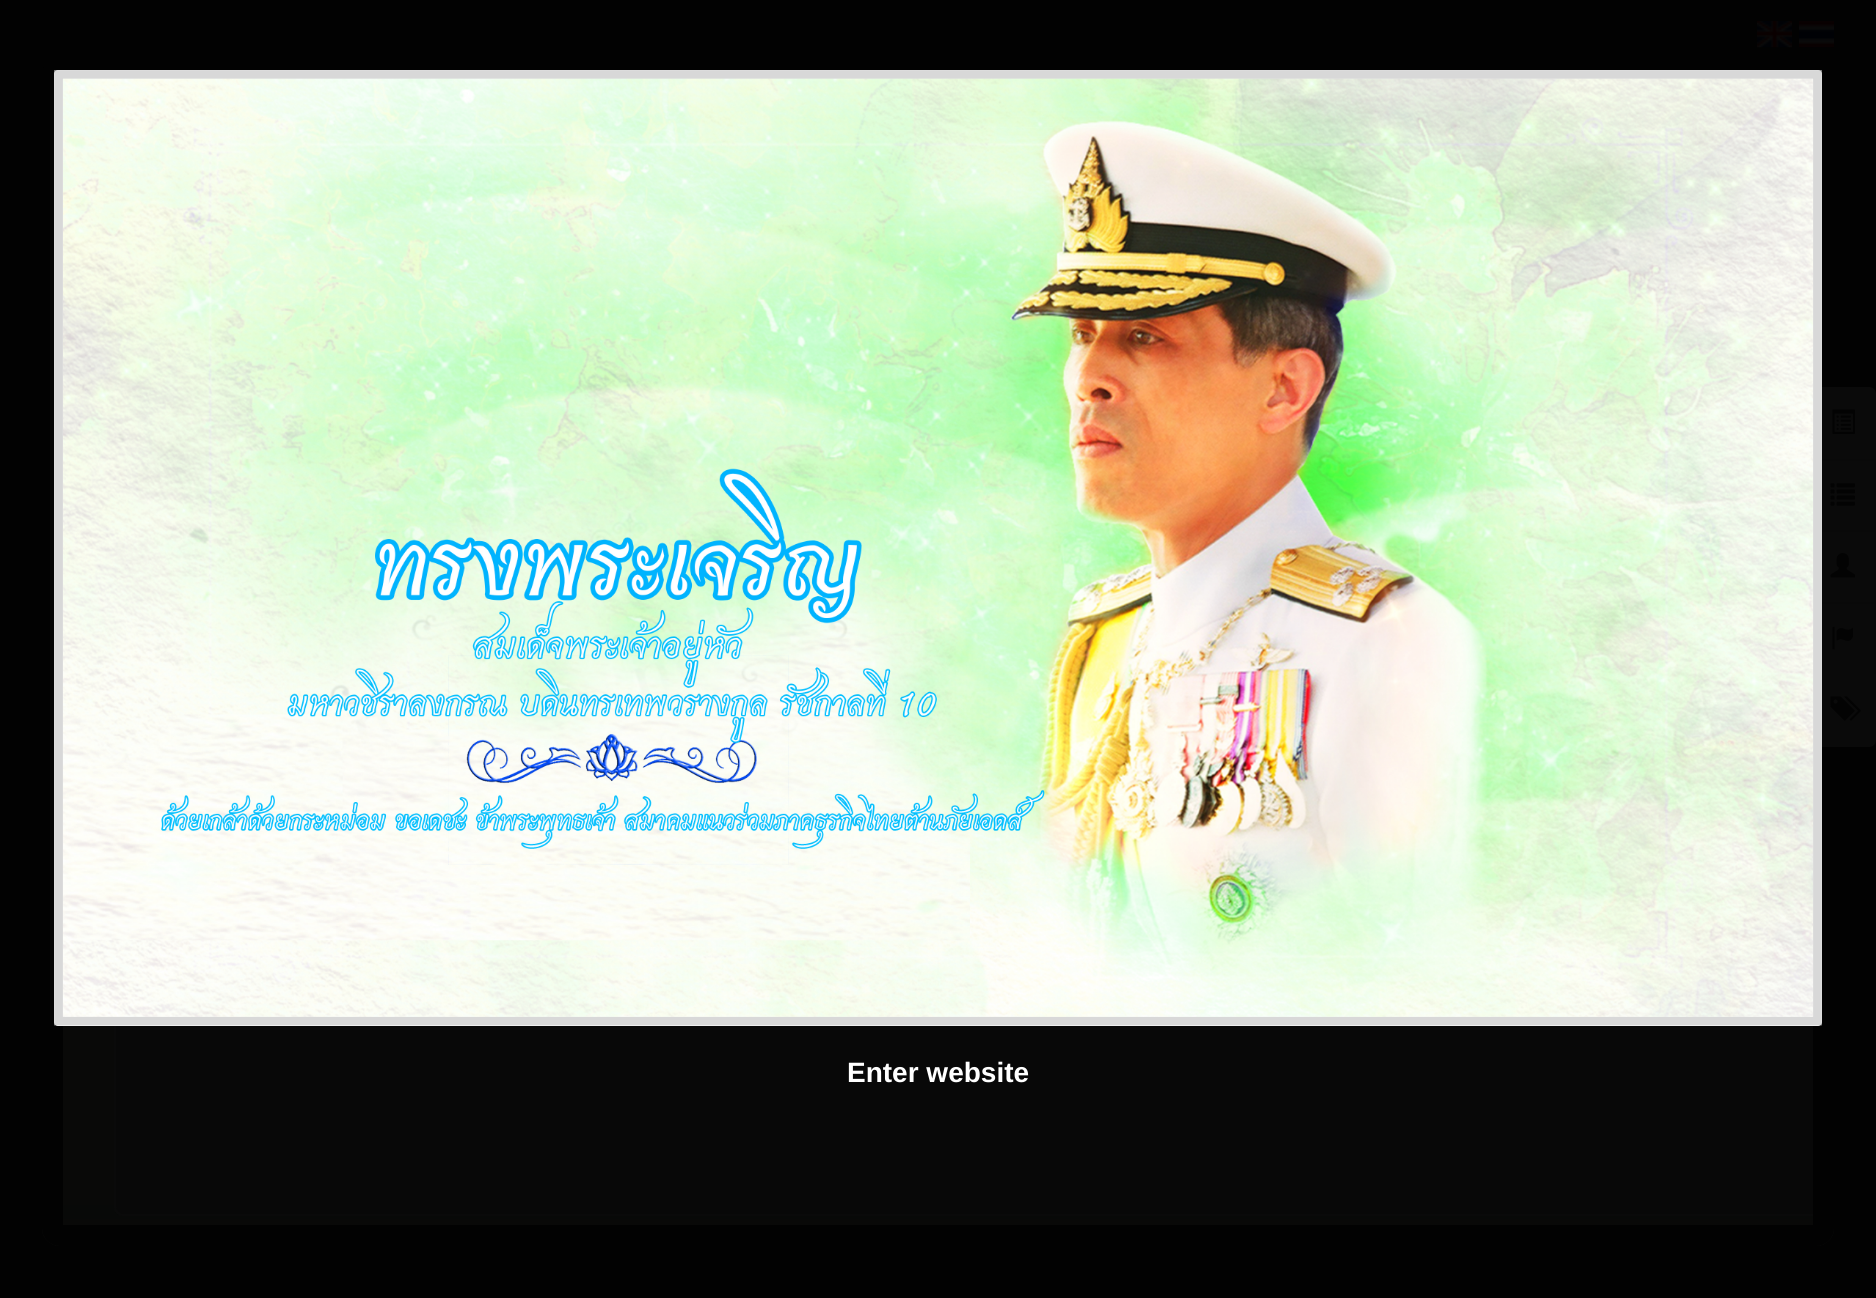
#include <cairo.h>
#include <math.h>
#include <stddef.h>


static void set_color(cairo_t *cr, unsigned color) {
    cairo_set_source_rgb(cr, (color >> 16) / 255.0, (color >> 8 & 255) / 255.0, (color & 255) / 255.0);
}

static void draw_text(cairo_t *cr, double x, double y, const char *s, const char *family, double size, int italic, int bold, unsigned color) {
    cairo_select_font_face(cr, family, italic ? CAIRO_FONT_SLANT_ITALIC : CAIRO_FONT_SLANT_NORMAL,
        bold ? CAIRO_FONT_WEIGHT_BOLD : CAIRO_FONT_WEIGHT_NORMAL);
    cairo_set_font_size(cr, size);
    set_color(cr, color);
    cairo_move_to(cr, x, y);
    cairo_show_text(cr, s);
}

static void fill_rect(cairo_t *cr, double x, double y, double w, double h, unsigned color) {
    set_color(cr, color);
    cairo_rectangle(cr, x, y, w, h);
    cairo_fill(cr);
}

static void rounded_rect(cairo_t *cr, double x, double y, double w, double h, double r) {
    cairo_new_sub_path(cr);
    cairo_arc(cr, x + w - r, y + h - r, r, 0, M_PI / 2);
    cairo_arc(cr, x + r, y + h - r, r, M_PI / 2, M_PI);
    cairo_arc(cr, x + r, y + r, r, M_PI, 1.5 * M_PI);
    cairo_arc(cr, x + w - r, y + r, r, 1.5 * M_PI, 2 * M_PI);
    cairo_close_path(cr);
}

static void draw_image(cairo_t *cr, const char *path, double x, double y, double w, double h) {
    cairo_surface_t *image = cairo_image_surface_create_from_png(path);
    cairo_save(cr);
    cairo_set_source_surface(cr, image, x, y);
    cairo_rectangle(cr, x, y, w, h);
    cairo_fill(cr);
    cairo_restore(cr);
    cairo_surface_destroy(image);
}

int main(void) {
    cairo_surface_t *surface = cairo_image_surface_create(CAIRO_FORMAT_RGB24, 1876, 1298);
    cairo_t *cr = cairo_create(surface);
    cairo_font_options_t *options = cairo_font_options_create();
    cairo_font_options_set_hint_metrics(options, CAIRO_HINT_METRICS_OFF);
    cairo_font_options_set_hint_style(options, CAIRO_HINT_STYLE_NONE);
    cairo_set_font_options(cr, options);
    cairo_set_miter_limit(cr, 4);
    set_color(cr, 0xFFFFFF);
    cairo_paint(cr);
    draw_image(cr, "assets/img1.png", 0, 0, 1876, 1298);
    draw_image(cr, "assets/img2.png", 1757, 21, 35, 27);
    draw_image(cr, "assets/img3.png", 1799, 21, 35, 27);
    draw_image(cr, "assets/img4.png", 42, 1026, 1792, 220);
    rounded_rect(cr, 52.5, 66.5, 1771, 1169, 7.5);
    set_color(cr, 0x020202);
    cairo_set_line_width(cr, 21);
    cairo_stroke(cr);
    cairo_set_source_rgba(cr, 0.039, 0.039, 0.039, 0.4);
    cairo_new_path(cr);
    cairo_move_to(cr, 123, 543);
    cairo_line_to(cr, 1813, 543);
    cairo_line_to(cr, 1813, 1216);
    cairo_line_to(cr, 123, 1216);
    cairo_curve_to(cr, 118, 1216, 114, 1212, 114, 1207);
    cairo_line_to(cr, 114, 552);
    cairo_curve_to(cr, 114, 547, 118, 543, 123, 543);
    cairo_close_path(cr);
    cairo_fill(cr);
    cairo_save(cr);
    cairo_rectangle(cr, 63, 77, 1750, 1148);
    cairo_clip(cr);
    rounded_rect(cr, 115, 544, 1713, 671, 8);
    set_color(cr, 0x0A0A0A);
    cairo_set_line_width(cr, 2);
    cairo_stroke(cr);
    cairo_restore(cr);
    set_color(cr, 0x0A0A0A);
    cairo_new_path(cr);
    cairo_move_to(cr, 1810, 387);
    cairo_line_to(cr, 1869, 387);
    cairo_curve_to(cr, 1873, 387, 1876, 390, 1876, 394);
    cairo_line_to(cr, 1876, 460);
    cairo_line_to(cr, 1803, 460);
    cairo_line_to(cr, 1803, 394);
    cairo_curve_to(cr, 1803, 390, 1806, 387, 1810, 387);
    cairo_close_path(cr);
    cairo_fill(cr);
    draw_image(cr, "assets/img5.png", 1832, 409, 23, 25);
    fill_rect(cr, 1822, 461, 52, 69, 0x0A0A0A);
    cairo_rectangle(cr, 1804, 460, 71, 71);
    set_color(cr, 0x090909);
    cairo_set_line_width(cr, 2);
    cairo_stroke(cr);
    draw_image(cr, "assets/img6.png", 1830, 483, 25, 23);
    fill_rect(cr, 1822, 532, 52, 70, 0x0A0A0A);
    cairo_rectangle(cr, 1804, 531, 71, 72);
    set_color(cr, 0x090909);
    cairo_stroke(cr);
    draw_image(cr, "assets/img7.png", 1830, 553, 25, 25);
    fill_rect(cr, 1822, 604, 52, 70, 0x0A0A0A);
    cairo_rectangle(cr, 1804, 603, 71, 72);
    set_color(cr, 0x090909);
    cairo_stroke(cr);
    draw_image(cr, "assets/img8.png", 1832, 626, 21, 24);
    set_color(cr, 0x0A0A0A);
    cairo_new_path(cr);
    cairo_move_to(cr, 1803, 674);
    cairo_line_to(cr, 1876, 674);
    cairo_line_to(cr, 1876, 740);
    cairo_curve_to(cr, 1876, 744, 1873, 747, 1869, 747);
    cairo_line_to(cr, 1810, 747);
    cairo_curve_to(cr, 1806, 747, 1803, 744, 1803, 740);
    cairo_close_path(cr);
    cairo_fill(cr);
    draw_image(cr, "assets/img9.png", 1830, 696, 31, 25);
    set_color(cr, 0xFFFFFF);
    rounded_rect(cr, 54, 70, 1768, 956, 4);
    cairo_fill(cr);
    cairo_new_path(cr);
    cairo_move_to(cr, 58.5, 74.5);
    cairo_line_to(cr, 1817.5, 74.5);
    cairo_line_to(cr, 1817.5, 1021);
    cairo_line_to(cr, 58.5, 1021);
    cairo_close_path(cr);
    cairo_set_source_rgba(cr, 0.784, 0.784, 0.784, 0.7);
    cairo_set_line_width(cr, 8.8);
    cairo_stroke(cr);
    draw_image(cr, "assets/img10.png", 63, 78, 1750, 939);
    draw_text(cr, 847, 1082, "Enter website", "Liberation Sans", 28, 0, 1, 0xFFFFFF);
    cairo_surface_write_to_png(surface, "output.png");
    cairo_font_options_destroy(options);
    cairo_destroy(cr);
    cairo_surface_destroy(surface);
    return 0;
}
